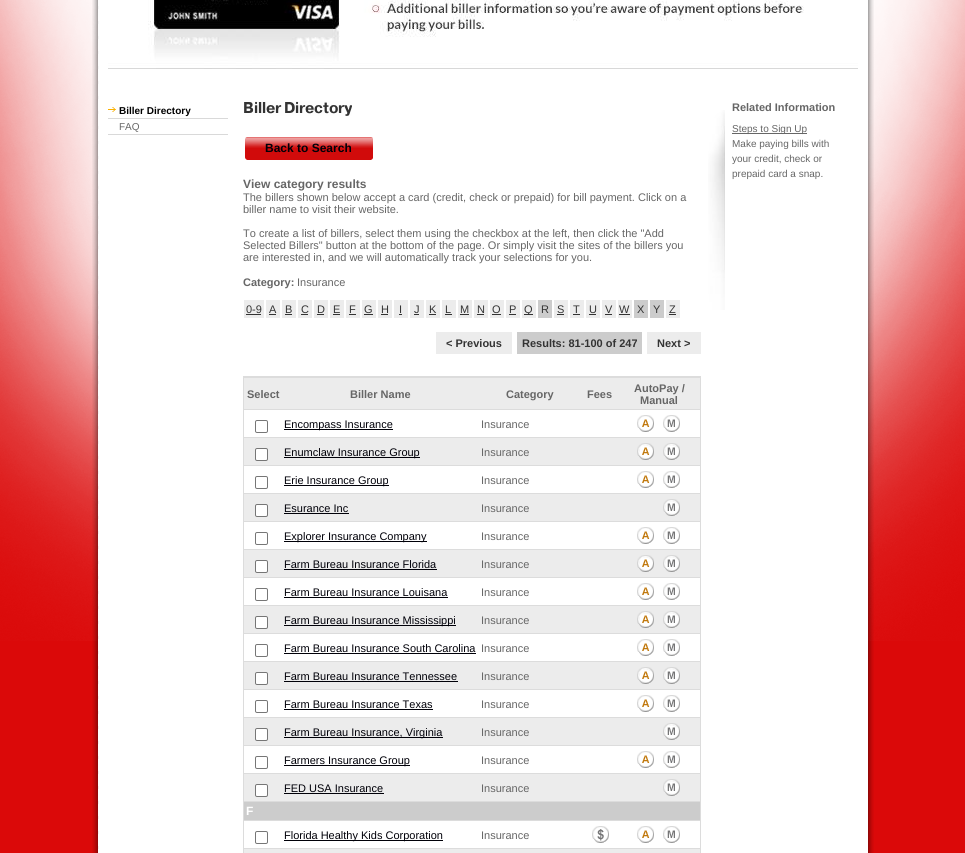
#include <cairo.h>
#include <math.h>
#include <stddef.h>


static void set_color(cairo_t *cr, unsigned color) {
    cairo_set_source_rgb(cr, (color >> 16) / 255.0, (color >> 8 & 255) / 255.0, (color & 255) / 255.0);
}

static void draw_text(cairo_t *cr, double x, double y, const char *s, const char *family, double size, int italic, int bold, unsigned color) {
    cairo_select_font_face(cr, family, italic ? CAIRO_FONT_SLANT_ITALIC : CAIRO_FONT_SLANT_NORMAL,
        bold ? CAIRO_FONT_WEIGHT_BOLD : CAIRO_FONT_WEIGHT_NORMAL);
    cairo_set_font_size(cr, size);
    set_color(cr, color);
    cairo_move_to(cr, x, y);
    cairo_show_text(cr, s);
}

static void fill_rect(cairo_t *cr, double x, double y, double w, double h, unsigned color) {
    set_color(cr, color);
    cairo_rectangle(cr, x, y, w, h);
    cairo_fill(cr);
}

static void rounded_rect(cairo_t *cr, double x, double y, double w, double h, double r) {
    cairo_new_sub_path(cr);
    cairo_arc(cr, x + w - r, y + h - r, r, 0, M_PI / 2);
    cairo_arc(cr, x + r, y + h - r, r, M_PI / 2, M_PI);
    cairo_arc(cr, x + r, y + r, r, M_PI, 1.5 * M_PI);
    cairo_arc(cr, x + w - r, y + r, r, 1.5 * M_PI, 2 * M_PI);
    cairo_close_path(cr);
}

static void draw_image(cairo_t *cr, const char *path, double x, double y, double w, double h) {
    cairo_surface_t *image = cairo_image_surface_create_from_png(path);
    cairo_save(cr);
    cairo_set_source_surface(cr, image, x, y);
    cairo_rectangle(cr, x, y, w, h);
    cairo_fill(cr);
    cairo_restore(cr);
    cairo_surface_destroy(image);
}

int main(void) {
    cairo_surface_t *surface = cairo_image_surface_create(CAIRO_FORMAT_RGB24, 965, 853);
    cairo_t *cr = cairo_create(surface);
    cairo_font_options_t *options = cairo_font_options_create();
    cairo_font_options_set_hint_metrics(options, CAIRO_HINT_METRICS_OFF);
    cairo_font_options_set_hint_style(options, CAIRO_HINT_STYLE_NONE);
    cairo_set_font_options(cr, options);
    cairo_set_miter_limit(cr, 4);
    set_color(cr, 0xDB0909);
    cairo_paint(cr);
    draw_image(cr, "assets/img1.png", 0, 0, 965, 641);
    draw_image(cr, "assets/img2.png", 92, 0, 782, 853);
    draw_image(cr, "assets/img3.png", 108, 0, 750, 69);
    fill_rect(cr, 108, 118, 120, 1, 0xD9D9D9);
    draw_image(cr, "assets/img4.png", 108, 107, 8, 5);
    draw_text(cr, 119, 114, "Biller Directory", "Liberation Sans", 10, 0, 1, 0x000000);
    fill_rect(cr, 108, 134, 120, 1, 0xD9D9D9);
    draw_text(cr, 119, 130, "FAQ", "Liberation Sans", 10, 0, 0, 0x666666);
    draw_image(cr, "assets/img5.png", 708, 110, 17, 200);
    draw_text(cr, 732, 111, "Related Information", "Liberation Sans", 11, 0, 1, 0x666666);
    fill_rect(cr, 732, 133, 75, 1, 0x666666);
    draw_text(cr, 732, 132, "Steps to Sign Up", "Liberation Sans", 10, 0, 0, 0x666666);
    draw_text(cr, 732, 147, "Make paying bills with", "Liberation Sans", 10, 0, 0, 0x666666);
    draw_text(cr, 732, 162, "your credit, check or", "Liberation Sans", 10, 0, 0, 0x666666);
    draw_text(cr, 732, 177, "prepaid card a snap.", "Liberation Sans", 10, 0, 0, 0x666666);
    draw_image(cr, "assets/img6.png", 244, 101, 108, 15);
    fill_rect(cr, 245, 137, 128, 23, 0xD10B0B);
    draw_image(cr, "assets/img7.png", 243, 133, 132, 29);
    draw_text(cr, 265, 152, "Back to Search", "Liberation Sans", 12, 0, 1, 0x000008);
    draw_text(cr, 243, 188, "View category results", "Liberation Sans", 12, 0, 1, 0x666666);
    draw_text(cr, 243, 201, "The billers shown below accept a card (credit, check or prepaid) for bill payment. Click on a", "Liberation Sans", 11, 0, 0, 0x666666);
    draw_text(cr, 243, 213, "biller name to visit their website.", "Liberation Sans", 11, 0, 0, 0x666666);
    draw_text(cr, 243, 237, "To create a list of billers, select them using the checkbox at the left, then click the \"Add", "Liberation Sans", 11, 0, 0, 0x666666);
    draw_text(cr, 243, 249, "Selected Billers\" button at the bottom of the page. Or simply visit the sites of the billers you", "Liberation Sans", 11, 0, 0, 0x666666);
    draw_text(cr, 243, 261, "are interested in, and we will automatically track your selections for you.", "Liberation Sans", 11, 0, 0, 0x666666);
    draw_text(cr, 243, 286, "Category:", "Liberation Sans", 11, 0, 1, 0x666666);
    draw_text(cr, 297, 286, "Insurance", "Liberation Sans", 11, 0, 0, 0x666666);
    fill_rect(cr, 244, 300, 20, 18, 0xECECEC);
    draw_text(cr, 246, 313, "0-9", "Liberation Sans", 11, 0, 0, 0x333333);
    fill_rect(cr, 246, 314, 15, 1, 0x333333);
    fill_rect(cr, 266, 300, 14, 18, 0xECECEC);
    draw_text(cr, 269, 313, "A", "Liberation Sans", 11, 0, 0, 0x333333);
    fill_rect(cr, 269, 314, 7, 1, 0x333333);
    fill_rect(cr, 282, 300, 14, 18, 0xECECEC);
    draw_text(cr, 285, 313, "B", "Liberation Sans", 11, 0, 0, 0x333333);
    fill_rect(cr, 285, 314, 7, 1, 0x333333);
    fill_rect(cr, 298, 300, 14, 18, 0xECECEC);
    draw_text(cr, 301, 313, "C", "Liberation Sans", 11, 0, 0, 0x333333);
    fill_rect(cr, 301, 314, 7, 1, 0x333333);
    fill_rect(cr, 314, 300, 14, 18, 0xECECEC);
    draw_text(cr, 317, 313, "D", "Liberation Sans", 11, 0, 0, 0x333333);
    fill_rect(cr, 317, 314, 7, 1, 0x333333);
    fill_rect(cr, 330, 300, 14, 18, 0xECECEC);
    draw_text(cr, 333, 313, "E", "Liberation Sans", 11, 0, 0, 0x333333);
    fill_rect(cr, 333, 314, 7, 1, 0x333333);
    fill_rect(cr, 346, 300, 14, 18, 0xECECEC);
    draw_text(cr, 349, 313, "F", "Liberation Sans", 11, 0, 0, 0x333333);
    fill_rect(cr, 349, 314, 7, 1, 0x333333);
    fill_rect(cr, 362, 300, 14, 18, 0xECECEC);
    draw_text(cr, 364, 313, "G", "Liberation Sans", 11, 0, 0, 0x333333);
    fill_rect(cr, 364, 314, 9, 1, 0x333333);
    fill_rect(cr, 378, 300, 14, 18, 0xECECEC);
    draw_text(cr, 381, 313, "H", "Liberation Sans", 11, 0, 0, 0x333333);
    fill_rect(cr, 381, 314, 7, 1, 0x333333);
    fill_rect(cr, 394, 300, 14, 18, 0xECECEC);
    draw_text(cr, 399, 313, "I", "Liberation Sans", 11, 0, 0, 0x333333);
    fill_rect(cr, 399, 314, 3, 1, 0x333333);
    fill_rect(cr, 410, 300, 14, 18, 0xECECEC);
    draw_text(cr, 414, 313, "J", "Liberation Sans", 11, 0, 0, 0x333333);
    fill_rect(cr, 414, 314, 5, 1, 0x333333);
    fill_rect(cr, 426, 300, 14, 18, 0xECECEC);
    draw_text(cr, 429, 313, "K", "Liberation Sans", 11, 0, 0, 0x333333);
    fill_rect(cr, 429, 314, 7, 1, 0x333333);
    fill_rect(cr, 442, 300, 14, 18, 0xECECEC);
    draw_text(cr, 445, 313, "L", "Liberation Sans", 11, 0, 0, 0x333333);
    fill_rect(cr, 445, 314, 7, 1, 0x333333);
    fill_rect(cr, 458, 300, 14, 18, 0xECECEC);
    draw_text(cr, 460, 313, "M", "Liberation Sans", 11, 0, 0, 0x333333);
    fill_rect(cr, 460, 314, 9, 1, 0x333333);
    fill_rect(cr, 474, 300, 14, 18, 0xECECEC);
    draw_text(cr, 477, 313, "N", "Liberation Sans", 11, 0, 0, 0x333333);
    fill_rect(cr, 477, 314, 7, 1, 0x333333);
    fill_rect(cr, 490, 300, 14, 18, 0xECECEC);
    draw_text(cr, 492, 313, "O", "Liberation Sans", 11, 0, 0, 0x333333);
    fill_rect(cr, 492, 314, 9, 1, 0x333333);
    fill_rect(cr, 506, 300, 14, 18, 0xECECEC);
    draw_text(cr, 509, 313, "P", "Liberation Sans", 11, 0, 0, 0x333333);
    fill_rect(cr, 509, 314, 7, 1, 0x333333);
    fill_rect(cr, 522, 300, 14, 18, 0xECECEC);
    fill_rect(cr, 524, 314, 9, 1, 0x333333);
    draw_text(cr, 524, 313, "Q", "Liberation Sans", 11, 0, 0, 0x333333);
    fill_rect(cr, 538, 300, 14, 18, 0xCCCCCC);
    draw_text(cr, 541, 313, "R", "Liberation Sans", 11, 0, 0, 0x333333);
    fill_rect(cr, 554, 300, 14, 18, 0xECECEC);
    draw_text(cr, 557, 313, "S", "Liberation Sans", 11, 0, 0, 0x333333);
    fill_rect(cr, 557, 314, 7, 1, 0x333333);
    fill_rect(cr, 570, 300, 14, 18, 0xECECEC);
    draw_text(cr, 573, 313, "T", "Liberation Sans", 11, 0, 0, 0x333333);
    fill_rect(cr, 573, 314, 7, 1, 0x333333);
    fill_rect(cr, 586, 300, 14, 18, 0xECECEC);
    draw_text(cr, 589, 313, "U", "Liberation Sans", 11, 0, 0, 0x333333);
    fill_rect(cr, 589, 314, 7, 1, 0x333333);
    fill_rect(cr, 602, 300, 14, 18, 0xECECEC);
    draw_text(cr, 605, 313, "V", "Liberation Sans", 11, 0, 0, 0x333333);
    fill_rect(cr, 605, 314, 7, 1, 0x333333);
    fill_rect(cr, 618, 300, 14, 18, 0xECECEC);
    draw_text(cr, 619, 313, "W", "Liberation Sans", 11, 0, 0, 0x333333);
    fill_rect(cr, 619, 314, 11, 1, 0x333333);
    fill_rect(cr, 634, 300, 14, 18, 0xCCCCCC);
    draw_text(cr, 637, 313, "X", "Liberation Sans", 11, 0, 0, 0x333333);
    fill_rect(cr, 650, 300, 14, 18, 0xCCCCCC);
    draw_text(cr, 653, 313, "Y", "Liberation Sans", 11, 0, 0, 0x333333);
    fill_rect(cr, 666, 300, 14, 18, 0xECECEC);
    draw_text(cr, 669, 313, "Z", "Liberation Sans", 11, 0, 0, 0x333333);
    fill_rect(cr, 669, 314, 7, 1, 0x333333);
    fill_rect(cr, 436, 332, 76, 22, 0xECECEC);
    draw_text(cr, 446, 347, "< Previous", "Liberation Sans", 11, 0, 1, 0x333333);
    fill_rect(cr, 517, 332, 125, 22, 0xCCCCCC);
    draw_text(cr, 522, 347, "Results: 81-100 of 247", "Liberation Sans", 11, 0, 1, 0x333333);
    fill_rect(cr, 647, 332, 54, 22, 0xECECEC);
    draw_text(cr, 657, 347, "Next >", "Liberation Sans", 11, 0, 1, 0x333333);
    cairo_rectangle(cr, 243.5, 376.5, 457, 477);
    set_color(cr, 0xDCDCDC);
    cairo_set_line_width(cr, 1);
    cairo_stroke(cr);
    fill_rect(cr, 244, 378, 456, 31, 0xECECEC);
    fill_rect(cr, 244, 377, 456, 1, 0xDCDCDC);
    draw_text(cr, 247, 398, "Select", "Liberation Sans", 11, 0, 1, 0x666666);
    draw_text(cr, 350, 398, "Biller Name", "Liberation Sans", 11, 0, 1, 0x666666);
    draw_text(cr, 506, 398, "Category", "Liberation Sans", 11, 0, 1, 0x666666);
    draw_text(cr, 587, 398, "Fees", "Liberation Sans", 11, 0, 1, 0x666666);
    draw_text(cr, 634, 392, "AutoPay /", "Liberation Sans", 11, 0, 1, 0x666666);
    draw_text(cr, 640, 404, "Manual", "Liberation Sans", 11, 0, 1, 0x666666);
    fill_rect(cr, 244, 409, 456, 1, 0xDCDCDC);
    rounded_rect(cr, 255.5, 420.5, 12, 12, 1.5);
    set_color(cr, 0x767676);
    cairo_stroke(cr);
    fill_rect(cr, 284, 429, 109, 1, 0x000008);
    draw_text(cr, 284, 428, "Encompass Insurance", "Liberation Sans", 11, 0, 0, 0x000008);
    draw_text(cr, 481, 428, "Insurance", "Liberation Sans", 11, 0, 0, 0x666666);
    draw_image(cr, "assets/img8.png", 637, 415, 17, 17);
    draw_image(cr, "assets/img9.png", 663, 415, 17, 17);
    fill_rect(cr, 244, 438, 456, 27, 0xECECEC);
    fill_rect(cr, 244, 437, 456, 1, 0xDCDCDC);
    set_color(cr, 0xFFFFFF);
    rounded_rect(cr, 255.5, 448.5, 12, 12, 1.5);
    cairo_fill_preserve(cr);
    set_color(cr, 0x767676);
    cairo_stroke(cr);
    fill_rect(cr, 284, 457, 136, 1, 0x000008);
    draw_text(cr, 284, 456, "Enumclaw Insurance Group", "Liberation Sans", 11, 0, 0, 0x000008);
    draw_text(cr, 481, 456, "Insurance", "Liberation Sans", 11, 0, 0, 0x666666);
    draw_image(cr, "assets/img10.png", 637, 443, 17, 17);
    draw_image(cr, "assets/img11.png", 663, 443, 17, 17);
    fill_rect(cr, 244, 465, 456, 1, 0xDCDCDC);
    rounded_rect(cr, 255.5, 476.5, 12, 12, 1.5);
    set_color(cr, 0x767676);
    cairo_stroke(cr);
    fill_rect(cr, 284, 485, 105, 1, 0x000008);
    draw_text(cr, 284, 484, "Erie Insurance Group", "Liberation Sans", 11, 0, 0, 0x000008);
    draw_text(cr, 481, 484, "Insurance", "Liberation Sans", 11, 0, 0, 0x666666);
    draw_image(cr, "assets/img8.png", 637, 471, 17, 17);
    draw_image(cr, "assets/img9.png", 663, 471, 17, 17);
    fill_rect(cr, 244, 494, 456, 27, 0xECECEC);
    fill_rect(cr, 244, 493, 456, 1, 0xDCDCDC);
    set_color(cr, 0xFFFFFF);
    rounded_rect(cr, 255.5, 504.5, 12, 12, 1.5);
    cairo_fill_preserve(cr);
    set_color(cr, 0x767676);
    cairo_stroke(cr);
    draw_text(cr, 284, 512, "Esurance Inc", "Liberation Sans", 11, 0, 0, 0x000008);
    fill_rect(cr, 284, 513, 65, 1, 0x000008);
    draw_text(cr, 481, 512, "Insurance", "Liberation Sans", 11, 0, 0, 0x666666);
    draw_image(cr, "assets/img11.png", 663, 499, 17, 17);
    fill_rect(cr, 244, 521, 456, 1, 0xDCDCDC);
    rounded_rect(cr, 255.5, 532.5, 12, 12, 1.5);
    set_color(cr, 0x767676);
    cairo_stroke(cr);
    fill_rect(cr, 284, 541, 143, 1, 0x000008);
    draw_text(cr, 284, 540, "Explorer Insurance Company", "Liberation Sans", 11, 0, 0, 0x000008);
    draw_text(cr, 481, 540, "Insurance", "Liberation Sans", 11, 0, 0, 0x666666);
    draw_image(cr, "assets/img8.png", 637, 527, 17, 17);
    draw_image(cr, "assets/img9.png", 663, 527, 17, 17);
    fill_rect(cr, 244, 550, 456, 27, 0xECECEC);
    fill_rect(cr, 244, 549, 456, 1, 0xDCDCDC);
    set_color(cr, 0xFFFFFF);
    rounded_rect(cr, 255.5, 560.5, 12, 12, 1.5);
    cairo_fill_preserve(cr);
    set_color(cr, 0x767676);
    cairo_stroke(cr);
    draw_text(cr, 284, 568, "Farm Bureau Insurance Florida", "Liberation Sans", 11, 0, 0, 0x000008);
    fill_rect(cr, 284, 569, 153, 1, 0x000008);
    draw_text(cr, 481, 568, "Insurance", "Liberation Sans", 11, 0, 0, 0x666666);
    draw_image(cr, "assets/img10.png", 637, 555, 17, 17);
    draw_image(cr, "assets/img11.png", 663, 555, 17, 17);
    fill_rect(cr, 244, 577, 456, 1, 0xDCDCDC);
    rounded_rect(cr, 255.5, 588.5, 12, 12, 1.5);
    set_color(cr, 0x767676);
    cairo_stroke(cr);
    draw_text(cr, 284, 596, "Farm Bureau Insurance Louisana", "Liberation Sans", 11, 0, 0, 0x000008);
    fill_rect(cr, 284, 597, 164, 1, 0x000008);
    draw_text(cr, 481, 596, "Insurance", "Liberation Sans", 11, 0, 0, 0x666666);
    draw_image(cr, "assets/img8.png", 637, 583, 17, 17);
    draw_image(cr, "assets/img9.png", 663, 583, 17, 17);
    fill_rect(cr, 244, 606, 456, 27, 0xECECEC);
    fill_rect(cr, 244, 605, 456, 1, 0xDCDCDC);
    set_color(cr, 0xFFFFFF);
    rounded_rect(cr, 255.5, 616.5, 12, 12, 1.5);
    cairo_fill_preserve(cr);
    set_color(cr, 0x767676);
    cairo_stroke(cr);
    fill_rect(cr, 284, 625, 172, 1, 0x000008);
    draw_text(cr, 284, 624, "Farm Bureau Insurance Mississippi", "Liberation Sans", 11, 0, 0, 0x000008);
    draw_text(cr, 481, 624, "Insurance", "Liberation Sans", 11, 0, 0, 0x666666);
    draw_image(cr, "assets/img10.png", 637, 611, 17, 17);
    draw_image(cr, "assets/img11.png", 663, 611, 17, 17);
    fill_rect(cr, 244, 633, 456, 1, 0xDCDCDC);
    rounded_rect(cr, 255.5, 644.5, 12, 12, 1.5);
    set_color(cr, 0x767676);
    cairo_stroke(cr);
    draw_text(cr, 284, 652, "Farm Bureau Insurance South Carolina", "Liberation Sans", 11, 0, 0, 0x000008);
    fill_rect(cr, 284, 653, 192, 1, 0x000008);
    draw_text(cr, 481, 652, "Insurance", "Liberation Sans", 11, 0, 0, 0x666666);
    draw_image(cr, "assets/img8.png", 637, 639, 17, 17);
    draw_image(cr, "assets/img9.png", 663, 639, 17, 17);
    fill_rect(cr, 244, 662, 456, 27, 0xECECEC);
    fill_rect(cr, 244, 661, 456, 1, 0xDCDCDC);
    set_color(cr, 0xFFFFFF);
    rounded_rect(cr, 255.5, 672.5, 12, 12, 1.5);
    cairo_fill_preserve(cr);
    set_color(cr, 0x767676);
    cairo_stroke(cr);
    draw_text(cr, 284, 680, "Farm Bureau Insurance Tennessee", "Liberation Sans", 11, 0, 0, 0x000008);
    fill_rect(cr, 284, 681, 174, 1, 0x000008);
    draw_text(cr, 481, 680, "Insurance", "Liberation Sans", 11, 0, 0, 0x666666);
    draw_image(cr, "assets/img10.png", 637, 667, 17, 17);
    draw_image(cr, "assets/img11.png", 663, 667, 17, 17);
    fill_rect(cr, 244, 689, 456, 1, 0xDCDCDC);
    rounded_rect(cr, 255.5, 700.5, 12, 12, 1.5);
    set_color(cr, 0x767676);
    cairo_stroke(cr);
    draw_text(cr, 284, 708, "Farm Bureau Insurance Texas", "Liberation Sans", 11, 0, 0, 0x000008);
    fill_rect(cr, 284, 709, 149, 1, 0x000008);
    draw_text(cr, 481, 708, "Insurance", "Liberation Sans", 11, 0, 0, 0x666666);
    draw_image(cr, "assets/img8.png", 637, 695, 17, 17);
    draw_image(cr, "assets/img9.png", 663, 695, 17, 17);
    fill_rect(cr, 244, 718, 456, 27, 0xECECEC);
    fill_rect(cr, 244, 717, 456, 1, 0xDCDCDC);
    set_color(cr, 0xFFFFFF);
    rounded_rect(cr, 255.5, 728.5, 12, 12, 1.5);
    cairo_fill_preserve(cr);
    set_color(cr, 0x767676);
    cairo_stroke(cr);
    fill_rect(cr, 284, 737, 159, 1, 0x000008);
    draw_text(cr, 284, 736, "Farm Bureau Insurance, Virginia", "Liberation Sans", 11, 0, 0, 0x000008);
    draw_text(cr, 481, 736, "Insurance", "Liberation Sans", 11, 0, 0, 0x666666);
    draw_image(cr, "assets/img11.png", 663, 723, 17, 17);
    fill_rect(cr, 244, 745, 456, 1, 0xDCDCDC);
    rounded_rect(cr, 255.5, 756.5, 12, 12, 1.5);
    set_color(cr, 0x767676);
    cairo_stroke(cr);
    fill_rect(cr, 284, 765, 126, 1, 0x000008);
    draw_text(cr, 284, 764, "Farmers Insurance Group", "Liberation Sans", 11, 0, 0, 0x000008);
    draw_text(cr, 481, 764, "Insurance", "Liberation Sans", 11, 0, 0, 0x666666);
    draw_image(cr, "assets/img8.png", 637, 751, 17, 17);
    draw_image(cr, "assets/img9.png", 663, 751, 17, 17);
    fill_rect(cr, 244, 774, 456, 27, 0xECECEC);
    fill_rect(cr, 244, 773, 456, 1, 0xDCDCDC);
    set_color(cr, 0xFFFFFF);
    rounded_rect(cr, 255.5, 784.5, 12, 12, 1.5);
    cairo_fill_preserve(cr);
    set_color(cr, 0x767676);
    cairo_stroke(cr);
    draw_text(cr, 284, 792, "FED USA Insurance", "Liberation Sans", 11, 0, 0, 0x000008);
    fill_rect(cr, 284, 793, 100, 1, 0x000008);
    draw_text(cr, 481, 792, "Insurance", "Liberation Sans", 11, 0, 0, 0x666666);
    draw_image(cr, "assets/img11.png", 663, 779, 17, 17);
    fill_rect(cr, 244, 802, 456, 18, 0xCCCCCC);
    fill_rect(cr, 244, 801, 456, 1, 0xDCDCDC);
    draw_text(cr, 246, 815, "F", "Liberation Sans", 12, 0, 1, 0xFFFFFF);
    fill_rect(cr, 244, 820, 456, 1, 0xDCDCDC);
    rounded_rect(cr, 255.5, 831.5, 12, 12, 1.5);
    set_color(cr, 0x767676);
    cairo_stroke(cr);
    fill_rect(cr, 284, 840, 159, 1, 0x000008);
    draw_text(cr, 284, 839, "Florida Healthy Kids Corporation", "Liberation Sans", 11, 0, 0, 0x000008);
    draw_text(cr, 481, 839, "Insurance", "Liberation Sans", 11, 0, 0, 0x666666);
    draw_image(cr, "assets/img12.png", 592, 826, 17, 17);
    draw_image(cr, "assets/img8.png", 637, 826, 17, 17);
    draw_image(cr, "assets/img9.png", 663, 826, 17, 17);
    fill_rect(cr, 244, 849, 456, 4, 0xECECEC);
    fill_rect(cr, 244, 848, 456, 1, 0xDCDCDC);
    cairo_surface_write_to_png(surface, "output.png");
    cairo_font_options_destroy(options);
    cairo_destroy(cr);
    cairo_surface_destroy(surface);
    return 0;
}
